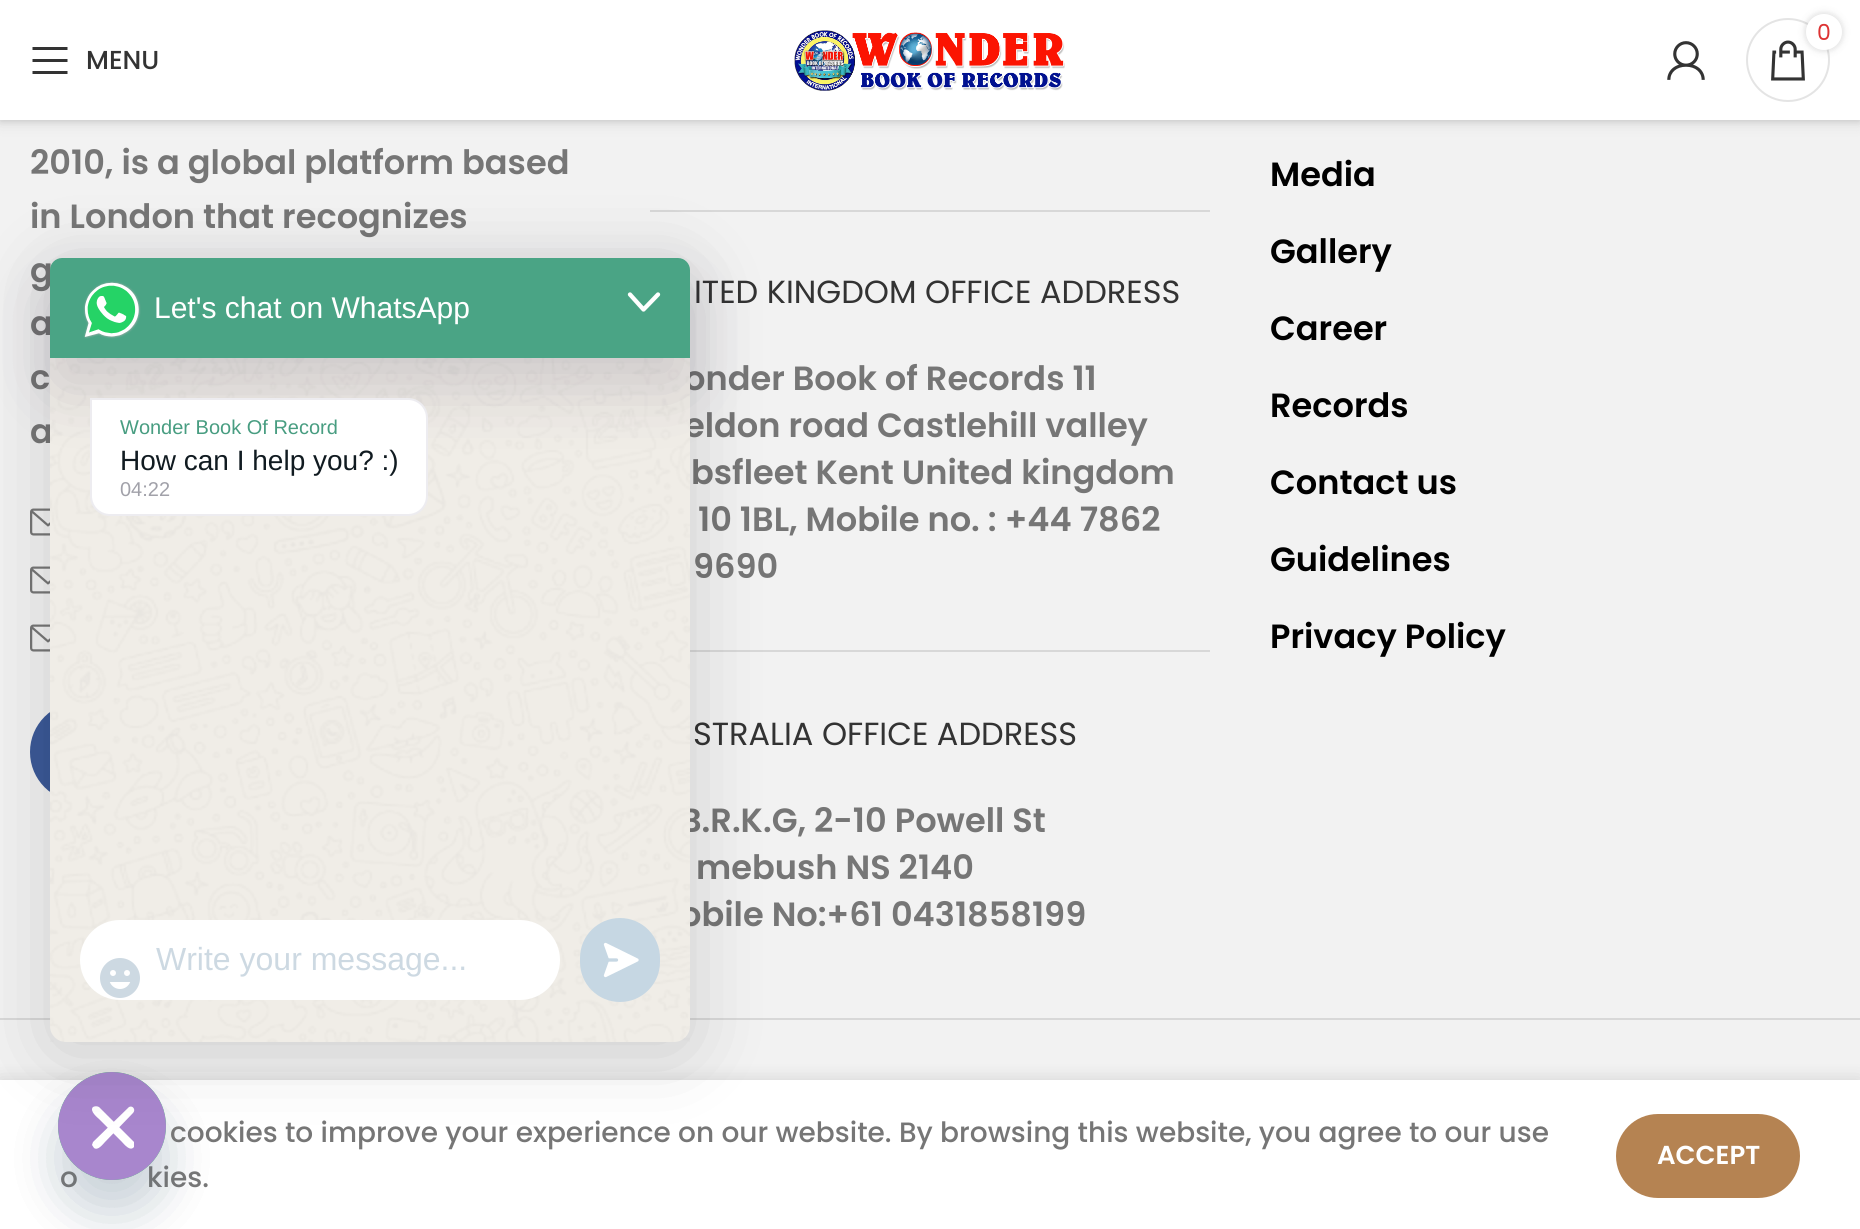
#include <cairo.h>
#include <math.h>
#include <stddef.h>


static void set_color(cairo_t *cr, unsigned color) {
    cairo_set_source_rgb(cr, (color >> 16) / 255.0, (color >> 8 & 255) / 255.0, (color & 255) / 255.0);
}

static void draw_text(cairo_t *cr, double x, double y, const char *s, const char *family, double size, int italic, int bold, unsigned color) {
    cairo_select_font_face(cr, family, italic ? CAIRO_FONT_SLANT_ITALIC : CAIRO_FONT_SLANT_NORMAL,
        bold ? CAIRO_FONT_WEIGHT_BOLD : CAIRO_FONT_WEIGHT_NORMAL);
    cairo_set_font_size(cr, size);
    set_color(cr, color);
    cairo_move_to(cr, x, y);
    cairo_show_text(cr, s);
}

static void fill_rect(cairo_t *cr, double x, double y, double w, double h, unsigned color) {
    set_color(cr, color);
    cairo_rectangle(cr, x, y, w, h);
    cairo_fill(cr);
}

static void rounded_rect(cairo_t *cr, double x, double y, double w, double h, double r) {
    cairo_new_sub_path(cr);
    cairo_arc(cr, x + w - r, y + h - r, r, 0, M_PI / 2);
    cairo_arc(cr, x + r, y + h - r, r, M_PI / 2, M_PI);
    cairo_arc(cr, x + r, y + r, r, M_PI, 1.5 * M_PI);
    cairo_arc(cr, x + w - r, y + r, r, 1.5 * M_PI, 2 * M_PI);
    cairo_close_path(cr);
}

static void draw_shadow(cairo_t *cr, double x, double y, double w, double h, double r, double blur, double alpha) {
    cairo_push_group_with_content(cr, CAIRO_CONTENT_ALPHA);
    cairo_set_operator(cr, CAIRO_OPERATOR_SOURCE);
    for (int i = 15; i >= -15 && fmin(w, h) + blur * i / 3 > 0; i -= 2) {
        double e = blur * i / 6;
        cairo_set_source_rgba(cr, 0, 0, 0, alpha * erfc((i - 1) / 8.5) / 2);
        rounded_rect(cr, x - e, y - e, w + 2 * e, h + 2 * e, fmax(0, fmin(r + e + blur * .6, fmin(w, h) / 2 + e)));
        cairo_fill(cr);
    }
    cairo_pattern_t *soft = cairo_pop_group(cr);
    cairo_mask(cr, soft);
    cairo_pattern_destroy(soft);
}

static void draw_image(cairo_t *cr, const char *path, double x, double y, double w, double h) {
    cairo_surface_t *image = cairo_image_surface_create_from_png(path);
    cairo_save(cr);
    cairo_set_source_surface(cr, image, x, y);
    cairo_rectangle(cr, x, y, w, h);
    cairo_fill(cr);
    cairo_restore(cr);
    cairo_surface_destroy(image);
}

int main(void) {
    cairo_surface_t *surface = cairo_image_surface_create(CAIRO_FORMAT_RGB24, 1860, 1229);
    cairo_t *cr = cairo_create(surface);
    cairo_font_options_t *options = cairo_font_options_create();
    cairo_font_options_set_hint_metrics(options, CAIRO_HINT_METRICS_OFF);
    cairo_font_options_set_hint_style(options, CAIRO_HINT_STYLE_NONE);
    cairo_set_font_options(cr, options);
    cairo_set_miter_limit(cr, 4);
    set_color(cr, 0xF2F2F2);
    cairo_paint(cr);
    set_color(cr, 0x000000);
    draw_shadow(cr, 0, 2, 1860, 120, 0, 3, 0.1);
    draw_shadow(cr, 0, 2, 1860, 120, 0, 8, 0.1);
    fill_rect(cr, 0, 0, 1860, 120, 0xFFFFFF);
    set_color(cr, 0x333333);
    cairo_new_path(cr);
    cairo_move_to(cr, 32.5, 50);
    cairo_line_to(cr, 67.5, 50);
    cairo_line_to(cr, 67.5, 47);
    cairo_line_to(cr, 32.5, 47);
    cairo_close_path(cr);
    cairo_move_to(cr, 32.5, 62);
    cairo_line_to(cr, 67.5, 62);
    cairo_line_to(cr, 67.5, 59);
    cairo_line_to(cr, 32.5, 59);
    cairo_close_path(cr);
    cairo_move_to(cr, 32.5, 74);
    cairo_line_to(cr, 67.5, 74);
    cairo_line_to(cr, 67.5, 71);
    cairo_line_to(cr, 32.5, 71);
    cairo_close_path(cr);
    cairo_fill(cr);
    draw_text(cr, 86, 69, "MENU", "Poppins Medium", 26, 0, 0, 0x333333);
    draw_image(cr, "assets/img1.png", 794, 30, 271, 61);
    cairo_arc(cr, 1788, 60, 41, 0, 2 * M_PI);
    set_color(cr, 0xE4E4E4);
    cairo_stroke(cr);
    draw_image(cr, "assets/img2.png", 1771, 40, 34, 41);
    set_color(cr, 0x000000);
    draw_shadow(cr, 1806, 14, 36, 36, 18, 4, 0.17);
    set_color(cr, 0xFFFFFF);
    cairo_arc(cr, 1824, 32, 18, 0, 2 * M_PI);
    cairo_fill(cr);
    draw_text(cr, 1817, 40, "0", "Poppins", 22, 0, 0, 0xDD3333);
    draw_image(cr, "assets/img3.png", 1667, 41, 38, 39);
    draw_text(cr, 30, 174, "2010, is a global platform based", "Poppins SemiBold", 33.6, 0, 0, 0x767676);
    draw_text(cr, 30, 228, "in London that recognizes", "Poppins SemiBold", 33.6, 0, 0, 0x767676);
    draw_text(cr, 30, 282, "g", "Poppins SemiBold", 33.6, 0, 0, 0x767676);
    draw_text(cr, 30, 335, "a", "Poppins SemiBold", 33.6, 0, 0, 0x767676);
    draw_text(cr, 30, 389, "c", "Poppins SemiBold", 33.6, 0, 0, 0x767676);
    draw_text(cr, 30, 443, "a", "Poppins SemiBold", 33.6, 0, 0, 0x767676);
    draw_image(cr, "assets/img4.png", 30, 508, 20, 28);
    draw_image(cr, "assets/img4.png", 30, 566, 20, 28);
    draw_image(cr, "assets/img4.png", 30, 624, 20, 28);
    set_color(cr, 0x3B5998);
    cairo_arc(cr, 80, 752, 50, 0, 2 * M_PI);
    cairo_fill(cr);
    fill_rect(cr, 650, 210, 560, 2, 0xD8D8D8);
    fill_rect(cr, 690, 650, 520, 2, 0xD8D8D8);
    draw_text(cr, 694, 303, "ITED KINGDOM OFFICE ADDRESS", "Poppins", 32, 0, 0, 0x333333);
    draw_text(cr, 684, 390, "onder Book of Records 11", "Poppins SemiBold", 33.6, 0, 0, 0x767676);
    draw_text(cr, 684, 437, "eldon road Castlehill valley", "Poppins SemiBold", 33.6, 0, 0, 0x767676);
    draw_text(cr, 691, 484, "bsfleet Kent United kingdom", "Poppins SemiBold", 33.6, 0, 0, 0x767676);
    draw_text(cr, 698, 531, "10 1BL, Mobile no. : +44 7862", "Poppins SemiBold", 33.6, 0, 0, 0x767676);
    draw_text(cr, 693, 578, "9690", "Poppins SemiBold", 33.6, 0, 0, 0x767676);
    draw_text(cr, 693, 745, "STRALIA OFFICE ADDRESS", "Poppins", 32, 0, 0, 0x333333);
    draw_text(cr, 680, 832, "B.R.K.G, 2-10 Powell St", "Poppins SemiBold", 33.6, 0, 0, 0x767676);
    draw_text(cr, 696, 879, "mebush NS 2140", "Poppins SemiBold", 33.6, 0, 0, 0x767676);
    draw_text(cr, 680, 926, "obile No:+61 0431858199", "Poppins SemiBold", 33.6, 0, 0, 0x767676);
    draw_text(cr, 1270, 186, "Media", "Poppins SemiBold", 33.6, 0, 0, 0x000000);
    draw_text(cr, 1270, 263, "Gallery", "Poppins SemiBold", 33.6, 0, 0, 0x000000);
    draw_text(cr, 1270, 340, "Career", "Poppins SemiBold", 33.6, 0, 0, 0x000000);
    draw_text(cr, 1270, 417, "Records", "Poppins SemiBold", 33.6, 0, 0, 0x000000);
    draw_text(cr, 1270, 494, "Contact us", "Poppins SemiBold", 33.6, 0, 0, 0x000000);
    draw_text(cr, 1270, 571, "Guidelines", "Poppins SemiBold", 33.6, 0, 0, 0x000000);
    draw_text(cr, 1270, 648, "Privacy Policy", "Poppins SemiBold", 33.6, 0, 0, 0x000000);
    fill_rect(cr, 0, 1018, 1860, 2, 0xD8D8D8);
    set_color(cr, 0x000000);
    draw_shadow(cr, 0, 1080, 1860, 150, 0, 9, 0.14);
    fill_rect(cr, 0, 1080, 1860, 149, 0xFFFFFF);
    set_color(cr, 0x49687E);
    draw_shadow(cr, 58, 1104, 108, 108, 54, 24, 0.16);
    draw_text(cr, 60, 1187, "o", "Poppins Medium", 28, 0, 0, 0x767676);
    draw_text(cr, 147, 1187, "kies.", "Poppins Medium", 28, 0, 0, 0x767676);
    draw_image(cr, "assets/img8.png", 58, 1072, 108, 108);
    set_color(cr, 0x49687E);
    draw_shadow(cr, 58, 1104, 108, 108, 54, 24, 0.16);
    set_color(cr, 0xA886CD);
    cairo_arc(cr, 112, 1126, 54, 0, 2 * M_PI);
    cairo_fill(cr);
    set_color(cr, 0xFFFFFF);
    cairo_new_path(cr);
    cairo_move_to(cr, 99, 1107);
    cairo_line_to(cr, 134, 1142);
    cairo_curve_to(cr, 134, 1144, 134, 1145, 134, 1147);
    cairo_curve_to(cr, 130, 1152, 124, 1144, 122, 1142);
    cairo_line_to(cr, 99, 1119);
    cairo_curve_to(cr, 98, 1118, 89, 1111, 93, 1107);
    cairo_curve_to(cr, 95, 1106, 97, 1106, 99, 1107);
    cairo_close_path(cr);
    cairo_fill(cr);
    cairo_new_path(cr);
    cairo_move_to(cr, 133, 1113);
    cairo_line_to(cr, 105, 1142);
    cairo_curve_to(cr, 103, 1144, 98, 1151, 94, 1148);
    cairo_line_to(cr, 92, 1145);
    cairo_line_to(cr, 93, 1142);
    cairo_line_to(cr, 129, 1107);
    cairo_curve_to(cr, 133, 1105, 136, 1110, 133, 1113);
    cairo_close_path(cr);
    cairo_fill(cr);
    set_color(cr, 0x000000);
    draw_shadow(cr, 50, 268, 640, 784, 12, 40, 0.16);
    set_color(cr, 0xF0EDE7);
    rounded_rect(cr, 50, 258, 640, 784, 16);
    cairo_fill(cr);
    draw_image(cr, "assets/img6.png", 50, 358, 640, 684);
    set_color(cr, 0x1A0E35);
    draw_shadow(cr, 50, 290, 640, 100, 12, 32, 0.16);
    set_color(cr, 0x4AA485);
    cairo_new_path(cr);
    cairo_move_to(cr, 62, 258);
    cairo_line_to(cr, 678, 258);
    cairo_curve_to(cr, 684.5, 258, 690, 263.5, 690, 270);
    cairo_line_to(cr, 690, 358);
    cairo_line_to(cr, 50, 358);
    cairo_line_to(cr, 50, 270);
    cairo_curve_to(cr, 50, 263.5, 55.5, 258, 62, 258);
    cairo_close_path(cr);
    cairo_fill(cr);
    draw_image(cr, "assets/img5.png", 83, 281, 58, 58);
    draw_text(cr, 154, 318, "Let's chat on WhatsApp", "Liberation Sans", 30, 0, 0, 0xFFFFFF);
    cairo_new_path(cr);
    cairo_move_to(cr, 630, 294.5);
    cairo_line_to(cr, 643.5, 309.5);
    cairo_line_to(cr, 658, 294.5);
    cairo_set_line_width(cr, 4.3);
    cairo_set_line_cap(cr, CAIRO_LINE_CAP_ROUND);
    cairo_set_line_join(cr, CAIRO_LINE_JOIN_ROUND);
    cairo_stroke(cr);
    cairo_new_path(cr);
    cairo_move_to(cr, 90, 398);
    cairo_line_to(cr, 408, 398);
    cairo_curve_to(cr, 419, 398, 428, 407, 428, 418);
    cairo_line_to(cr, 428, 496);
    cairo_curve_to(cr, 428, 507, 419, 516, 408, 516);
    cairo_line_to(cr, 110, 516);
    cairo_curve_to(cr, 99, 516, 90, 507, 90, 496);
    cairo_close_path(cr);
    cairo_fill(cr);
    cairo_new_path(cr);
    cairo_move_to(cr, 91, 399);
    cairo_line_to(cr, 408, 399);
    cairo_curve_to(cr, 418.5, 399, 427, 407.5, 427, 418);
    cairo_line_to(cr, 427, 496);
    cairo_curve_to(cr, 427, 506.5, 418.5, 515, 408, 515);
    cairo_line_to(cr, 110, 515);
    cairo_curve_to(cr, 99.5, 515, 91, 506.5, 91, 496);
    cairo_close_path(cr);
    cairo_set_source_rgba(cr, 0.133, 0.067, 0.278, 0.08);
    cairo_set_line_width(cr, 2);
    cairo_set_line_cap(cr, CAIRO_LINE_CAP_BUTT);
    cairo_set_line_join(cr, CAIRO_LINE_JOIN_MITER);
    cairo_stroke(cr);
    draw_text(cr, 120, 434, "Wonder Book Of Record", "Liberation Sans", 20, 0, 0, 0x489D81);
    draw_text(cr, 120, 470, "How can I help you? :)", "Liberation Sans", 28, 0, 0, 0x111B21);
    draw_text(cr, 120, 496, "04:22", "Liberation Sans", 20, 0, 0, 0xA1A1A9);
    set_color(cr, 0xFFFFFF);
    rounded_rect(cr, 80, 920, 480, 80, 40);
    cairo_fill(cr);
    draw_image(cr, "assets/img7.png", 100, 958, 40, 40);
    draw_text(cr, 156, 970, "Write your message...", "Liberation Sans", 32, 0, 0, 0xCDD9E2);
    set_color(cr, 0xC6D7E3);
    rounded_rect(cr, 580, 918, 80, 84, 40);
    cairo_fill(cr);
    set_color(cr, 0xFFFFFF);
    cairo_new_path(cr);
    cairo_move_to(cr, 637, 960);
    cairo_line_to(cr, 605.5, 975.5);
    cairo_line_to(cr, 611, 960);
    cairo_line_to(cr, 605.5, 944.5);
    cairo_close_path(cr);
    cairo_fill_preserve(cr);
    cairo_set_line_width(cr, 3.3);
    cairo_set_line_cap(cr, CAIRO_LINE_CAP_ROUND);
    cairo_set_line_join(cr, CAIRO_LINE_JOIN_ROUND);
    cairo_stroke(cr);
    cairo_new_path(cr);
    cairo_move_to(cr, 616.5, 960);
    cairo_line_to(cr, 606, 960);
    set_color(cr, 0xC6D7E3);
    cairo_stroke(cr);
    draw_text(cr, 170, 1142, "cookies to improve your experience on our website. By browsing this website, you agree to our use", "Poppins Medium", 28, 0, 0, 0x767676);
    set_color(cr, 0xB58352);
    rounded_rect(cr, 1616, 1114, 184, 84, 42);
    cairo_fill(cr);
    draw_text(cr, 1657, 1164, "ACCEPT", "Poppins SemiBold", 26, 0, 0, 0xFFFFFF);
    cairo_surface_write_to_png(surface, "output.png");
    cairo_font_options_destroy(options);
    cairo_destroy(cr);
    cairo_surface_destroy(surface);
    return 0;
}
